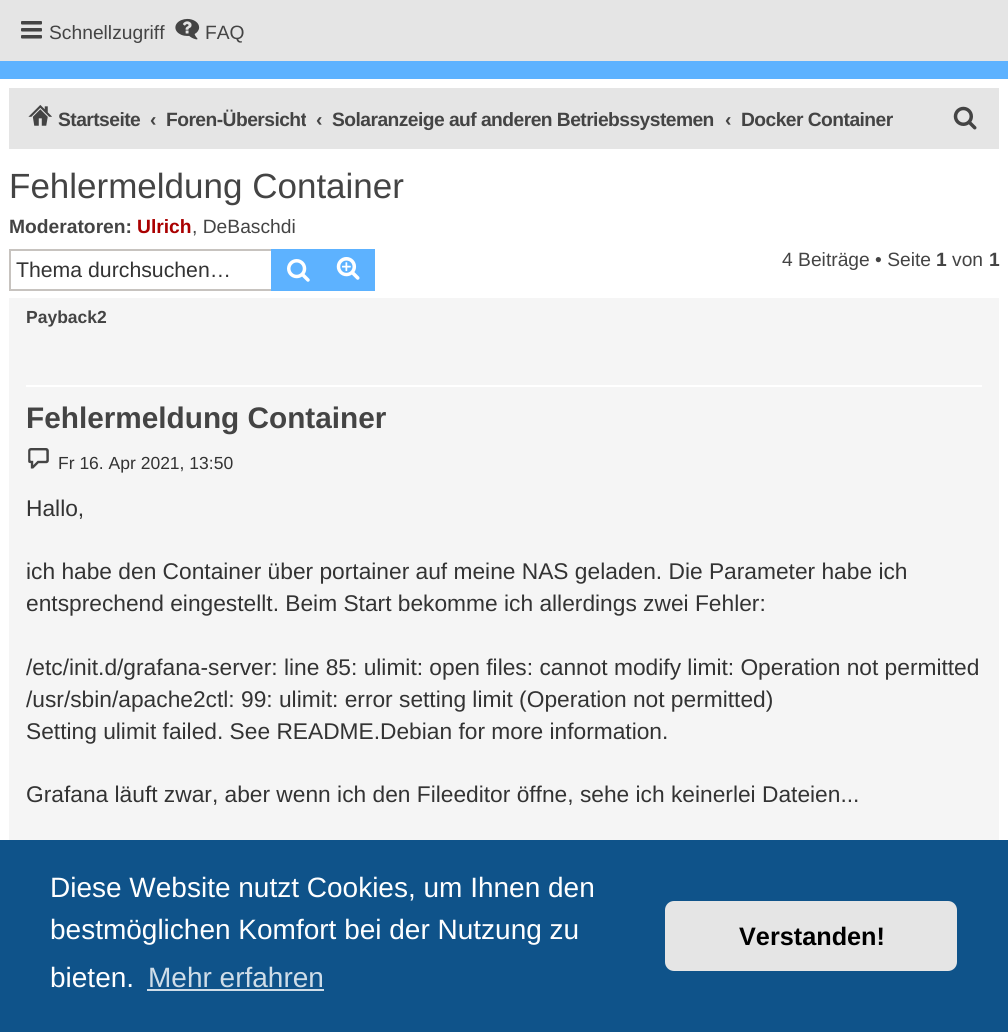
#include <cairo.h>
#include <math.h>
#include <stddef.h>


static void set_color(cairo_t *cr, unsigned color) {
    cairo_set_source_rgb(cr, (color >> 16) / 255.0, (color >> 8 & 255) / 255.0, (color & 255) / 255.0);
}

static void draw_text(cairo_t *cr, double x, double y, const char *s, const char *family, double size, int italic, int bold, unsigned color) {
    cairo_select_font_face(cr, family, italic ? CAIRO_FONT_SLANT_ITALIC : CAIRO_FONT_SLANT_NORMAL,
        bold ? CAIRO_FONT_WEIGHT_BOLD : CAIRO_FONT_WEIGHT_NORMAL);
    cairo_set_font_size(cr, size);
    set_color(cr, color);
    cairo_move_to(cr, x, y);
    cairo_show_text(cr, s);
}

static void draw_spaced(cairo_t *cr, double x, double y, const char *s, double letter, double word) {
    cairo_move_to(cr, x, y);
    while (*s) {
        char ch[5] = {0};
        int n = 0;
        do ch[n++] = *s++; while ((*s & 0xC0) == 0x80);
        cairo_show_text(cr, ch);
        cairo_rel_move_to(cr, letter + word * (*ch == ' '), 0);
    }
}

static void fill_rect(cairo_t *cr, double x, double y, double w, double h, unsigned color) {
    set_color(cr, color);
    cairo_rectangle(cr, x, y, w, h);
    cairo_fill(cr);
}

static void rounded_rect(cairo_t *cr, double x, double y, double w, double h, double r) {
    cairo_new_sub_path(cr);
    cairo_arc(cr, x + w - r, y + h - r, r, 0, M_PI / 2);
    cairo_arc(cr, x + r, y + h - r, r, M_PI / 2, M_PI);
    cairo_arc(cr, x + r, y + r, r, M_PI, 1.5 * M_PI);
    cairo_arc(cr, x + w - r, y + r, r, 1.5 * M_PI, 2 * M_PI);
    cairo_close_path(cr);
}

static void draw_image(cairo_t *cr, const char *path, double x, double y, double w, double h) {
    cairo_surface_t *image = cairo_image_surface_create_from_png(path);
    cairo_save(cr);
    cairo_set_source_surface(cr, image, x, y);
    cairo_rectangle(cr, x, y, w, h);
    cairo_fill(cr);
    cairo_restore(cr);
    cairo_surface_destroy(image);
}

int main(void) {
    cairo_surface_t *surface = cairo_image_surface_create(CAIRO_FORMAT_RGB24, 1008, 1032);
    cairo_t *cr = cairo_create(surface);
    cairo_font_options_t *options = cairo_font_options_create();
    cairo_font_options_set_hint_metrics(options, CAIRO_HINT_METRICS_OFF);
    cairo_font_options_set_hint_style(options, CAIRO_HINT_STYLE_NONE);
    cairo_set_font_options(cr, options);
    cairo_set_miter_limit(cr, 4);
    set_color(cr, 0xFFFFFF);
    cairo_paint(cr);
    fill_rect(cr, 0, 0, 1008, 61, 0xE5E5E5);
    draw_image(cr, "assets/img1.png", 21, 21, 21, 18);
    draw_text(cr, 49, 39, "Schnellzugriff", "Liberation Sans", 19.25, 0, 0, 0x444444);
    draw_image(cr, "assets/img2.png", 175, 18, 25, 22);
    draw_text(cr, 205, 39, "FAQ", "Liberation Sans", 19.25, 0, 0, 0x444444);
    fill_rect(cr, 0, 61, 1008, 18, 0x5DB2FF);
    fill_rect(cr, 9, 88, 990, 61, 0xE5E5E5);
    draw_image(cr, "assets/img3.png", 28, 105, 24, 21);
    cairo_select_font_face(cr, "Liberation Sans", CAIRO_FONT_SLANT_NORMAL, CAIRO_FONT_WEIGHT_BOLD);
    set_color(cr, 0x444444);
    draw_spaced(cr, 58, 126, "Startseite", -0.55, 0);
    draw_text(cr, 150, 126, "‹", "Liberation Sans", 19.25, 0, 1, 0x444444);
    cairo_save(cr);
    cairo_rectangle(cr, 166, 98, 140, 42);
    cairo_clip(cr);
    draw_spaced(cr, 166, 126, "Foren-Übersicht", -0.55, 0);
    cairo_restore(cr);
    draw_text(cr, 316, 126, "‹", "Liberation Sans", 19.25, 0, 1, 0x444444);
    draw_spaced(cr, 332, 126, "Solaranzeige auf anderen Betriebssystemen", -0.55, 0);
    draw_text(cr, 725, 126, "‹", "Liberation Sans", 19.25, 0, 1, 0x444444);
    cairo_save(cr);
    cairo_rectangle(cr, 740, 98, 153, 42);
    cairo_clip(cr);
    draw_spaced(cr, 741, 126, "Docker Container", -0.55, 0);
    cairo_restore(cr);
    draw_image(cr, "assets/img4.png", 953, 106, 24, 24);
    draw_text(cr, 9, 198, "Fehlermeldung Container", "Liberation Sans", 35, 0, 0, 0x444444);
    draw_text(cr, 9, 233, "Moderatoren:", "Liberation Sans", 19.25, 0, 1, 0x444444);
    draw_text(cr, 137, 233, "Ulrich", "Liberation Sans", 19.25, 0, 1, 0xAA0000);
    draw_text(cr, 192, 233, ", DeBaschdi", "Liberation Sans", 19.25, 0, 0, 0x444444);
    fill_rect(cr, 9, 249, 262, 2, 0xC7C3BF);
    fill_rect(cr, 9, 289, 262, 2, 0xC7C3BF);
    fill_rect(cr, 9, 249, 2, 42, 0xC7C3BF);
    draw_text(cr, 16, 277, "Thema durchsuchen…", "Liberation Sans", 21.25, 0, 0, 0x333333);
    fill_rect(cr, 271, 249, 53, 42, 0x5DB2FF);
    draw_image(cr, "assets/img5.png", 287, 259, 23, 23);
    fill_rect(cr, 324, 251, 49, 38, 0x5DB2FF);
    fill_rect(cr, 324, 249, 51, 2, 0x5DB2FF);
    fill_rect(cr, 373, 249, 2, 42, 0x5DB2FF);
    fill_rect(cr, 324, 289, 51, 2, 0x5DB2FF);
    draw_image(cr, "assets/img6.png", 336, 257, 24, 23);
    draw_text(cr, 782, 266, "4 Beiträge • Seite", "Liberation Sans", 19.25, 0, 0, 0x444444);
    draw_text(cr, 936, 266, "1", "Liberation Sans", 19.25, 0, 1, 0x444444);
    draw_text(cr, 952, 266, "von", "Liberation Sans", 19.25, 0, 0, 0x444444);
    draw_text(cr, 989, 266, "1", "Liberation Sans", 19.25, 0, 1, 0x444444);
    fill_rect(cr, 9, 298, 990, 542, 0xF5F5F5);
    fill_rect(cr, 26, 385, 956, 2, 0xFFFFFF);
    draw_text(cr, 26, 323, "Payback2", "Liberation Sans", 17.5, 0, 1, 0x444444);
    draw_text(cr, 26, 428, "Fehlermeldung Container", "Liberation Sans", 29.75, 0, 1, 0x444444);
    draw_image(cr, "assets/img7.png", 28, 448, 21, 21);
    draw_text(cr, 58, 469, "Fr 16. Apr 2021, 13:50", "Liberation Sans", 17.5, 0, 0, 0x333333);
    draw_text(cr, 26, 516, "Hallo,", "Liberation Sans", 22.75, 0, 0, 0x333333);
    draw_text(cr, 26, 579, "ich habe den Container über portainer auf meine NAS geladen. Die Parameter habe ich", "Liberation Sans", 22.75, 0, 0, 0x333333);
    draw_text(cr, 26, 611, "entsprechend eingestellt. Beim Start bekomme ich allerdings zwei Fehler:", "Liberation Sans", 22.75, 0, 0, 0x333333);
    draw_text(cr, 26, 675, "/etc/init.d/grafana-server: line 85: ulimit: open files: cannot modify limit: Operation not permitted", "Liberation Sans", 22.75, 0, 0, 0x333333);
    draw_text(cr, 26, 707, "/usr/sbin/apache2ctl: 99: ulimit: error setting limit (Operation not permitted)", "Liberation Sans", 22.75, 0, 0, 0x333333);
    draw_text(cr, 26, 739, "Setting ulimit failed. See README.Debian for more information.", "Liberation Sans", 22.75, 0, 0, 0x333333);
    draw_text(cr, 26, 802, "Grafana läuft zwar, aber wenn ich den Fileeditor öffne, sehe ich keinerlei Dateien...", "Liberation Sans", 22.75, 0, 0, 0x333333);
    fill_rect(cr, 0, 840, 1008, 192, 0x0F538A);
    draw_text(cr, 50, 897, "Diese Website nutzt Cookies, um Ihnen den", "Liberation Sans", 28, 0, 0, 0xFFFFFF);
    draw_text(cr, 50, 939, "bestmöglichen Komfort bei der Nutzung zu", "Liberation Sans", 28, 0, 0, 0xFFFFFF);
    draw_text(cr, 50, 987, "bieten.", "Liberation Sans", 28, 0, 0, 0xFFFFFF);
    draw_text(cr, 148, 987, "Mehr erfahren", "Liberation Sans", 28, 0, 0, 0xCFDDE8);
    fill_rect(cr, 147, 989, 177, 2, 0xCFDDE8);
    set_color(cr, 0xE5E5E5);
    rounded_rect(cr, 665, 901, 292, 70, 9);
    cairo_fill(cr);
    draw_text(cr, 739, 945, "Verstanden!", "Liberation Sans", 25.25, 0, 1, 0x000000);
    cairo_surface_write_to_png(surface, "output.png");
    cairo_font_options_destroy(options);
    cairo_destroy(cr);
    cairo_surface_destroy(surface);
    return 0;
}
